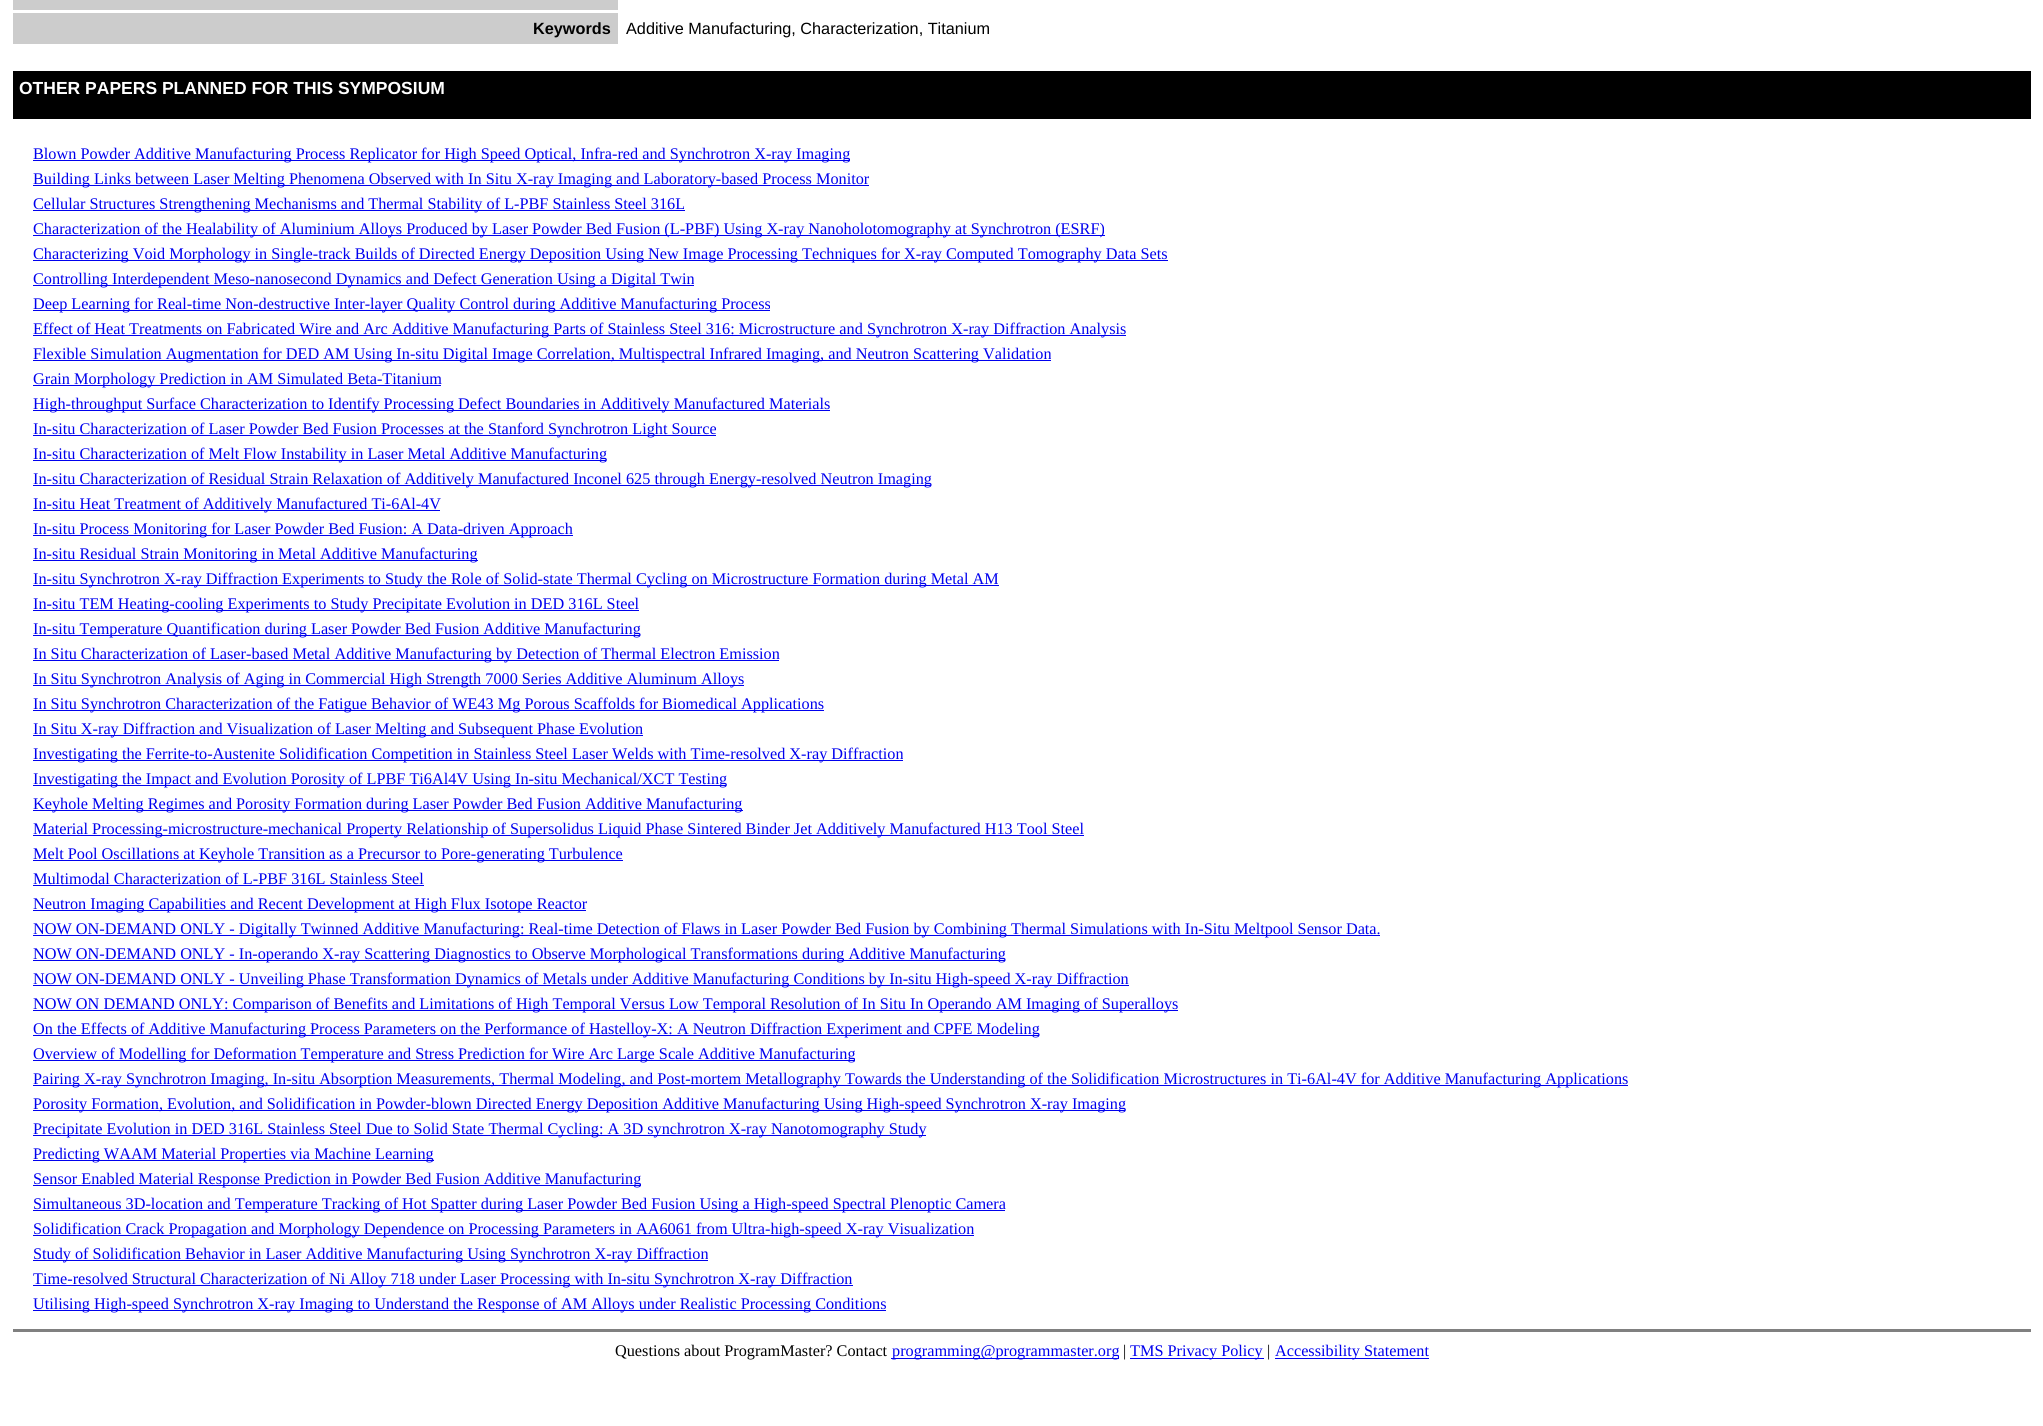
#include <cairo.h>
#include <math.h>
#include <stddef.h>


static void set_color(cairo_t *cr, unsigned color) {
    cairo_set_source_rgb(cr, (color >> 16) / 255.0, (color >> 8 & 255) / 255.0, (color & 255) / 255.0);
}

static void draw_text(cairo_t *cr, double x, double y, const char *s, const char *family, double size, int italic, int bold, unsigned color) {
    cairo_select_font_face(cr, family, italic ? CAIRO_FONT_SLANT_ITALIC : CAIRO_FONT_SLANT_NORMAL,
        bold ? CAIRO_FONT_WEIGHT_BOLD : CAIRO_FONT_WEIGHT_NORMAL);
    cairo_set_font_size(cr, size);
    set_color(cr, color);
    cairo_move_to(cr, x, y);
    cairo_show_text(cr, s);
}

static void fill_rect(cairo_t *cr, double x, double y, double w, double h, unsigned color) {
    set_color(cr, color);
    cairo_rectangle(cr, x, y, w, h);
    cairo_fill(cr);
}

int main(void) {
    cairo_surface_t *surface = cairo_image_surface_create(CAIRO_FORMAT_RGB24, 2043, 1426);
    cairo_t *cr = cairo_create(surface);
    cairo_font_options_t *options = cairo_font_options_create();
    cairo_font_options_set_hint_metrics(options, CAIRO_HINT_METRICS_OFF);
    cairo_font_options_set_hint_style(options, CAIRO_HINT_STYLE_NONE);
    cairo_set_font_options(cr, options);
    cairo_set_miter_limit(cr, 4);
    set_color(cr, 0xFFFFFF);
    cairo_paint(cr);
    fill_rect(cr, 13, 0, 605, 10, 0xCCCCCC);
    fill_rect(cr, 13, 13, 605, 31, 0xCCCCCC);
    draw_text(cr, 533, 34, "Keywords", "Liberation Sans", 16.25, 0, 1, 0x000000);
    draw_text(cr, 626, 34, "Additive Manufacturing, Characterization, Titanium", "Liberation Sans", 16.25, 0, 0, 0x000000);
    fill_rect(cr, 13, 71, 2018, 48, 0x000000);
    draw_text(cr, 19, 94, "OTHER PAPERS PLANNED FOR THIS SYMPOSIUM", "Liberation Sans", 17.5, 0, 1, 0xFFFFFF);
    fill_rect(cr, 33, 160, 817, 1, 0x0000EE);
    draw_text(cr, 33, 159, "Blown Powder Additive Manufacturing Process Replicator for High Speed Optical, Infra-red and Synchrotron X-ray Imaging", "Liberation Serif", 16.25, 0, 0, 0x0000EE);
    fill_rect(cr, 33, 185, 836, 1, 0x0000EE);
    draw_text(cr, 33, 184, "Building Links between Laser Melting Phenomena Observed with In Situ X-ray Imaging and Laboratory-based Process Monitor", "Liberation Serif", 16.25, 0, 0, 0x0000EE);
    fill_rect(cr, 33, 210, 652, 1, 0x0000EE);
    draw_text(cr, 33, 209, "Cellular Structures Strengthening Mechanisms and Thermal Stability of L-PBF Stainless Steel 316L", "Liberation Serif", 16.25, 0, 0, 0x0000EE);
    fill_rect(cr, 33, 235, 1072, 1, 0x0000EE);
    draw_text(cr, 33, 234, "Characterization of the Healability of Aluminium Alloys Produced by Laser Powder Bed Fusion (L-PBF) Using X-ray Nanoholotomography at Synchrotron (ESRF)", "Liberation Serif", 16.25, 0, 0, 0x0000EE);
    fill_rect(cr, 33, 260, 1135, 1, 0x0000EE);
    draw_text(cr, 33, 259, "Characterizing Void Morphology in Single-track Builds of Directed Energy Deposition Using New Image Processing Techniques for X-ray Computed Tomography Data Sets", "Liberation Serif", 16.25, 0, 0, 0x0000EE);
    fill_rect(cr, 33, 285, 661, 1, 0x0000EE);
    draw_text(cr, 33, 284, "Controlling Interdependent Meso-nanosecond Dynamics and Defect Generation Using a Digital Twin", "Liberation Serif", 16.25, 0, 0, 0x0000EE);
    fill_rect(cr, 33, 310, 737, 1, 0x0000EE);
    draw_text(cr, 33, 309, "Deep Learning for Real-time Non-destructive Inter-layer Quality Control during Additive Manufacturing Process", "Liberation Serif", 16.25, 0, 0, 0x0000EE);
    fill_rect(cr, 33, 335, 1093, 1, 0x0000EE);
    draw_text(cr, 33, 334, "Effect of Heat Treatments on Fabricated Wire and Arc Additive Manufacturing Parts of Stainless Steel 316: Microstructure and Synchrotron X-ray Diffraction Analysis", "Liberation Serif", 16.25, 0, 0, 0x0000EE);
    fill_rect(cr, 33, 360, 1018, 1, 0x0000EE);
    draw_text(cr, 33, 359, "Flexible Simulation Augmentation for DED AM Using In-situ Digital Image Correlation, Multispectral Infrared Imaging, and Neutron Scattering Validation", "Liberation Serif", 16.25, 0, 0, 0x0000EE);
    fill_rect(cr, 33, 385, 408, 1, 0x0000EE);
    draw_text(cr, 33, 384, "Grain Morphology Prediction in AM Simulated Beta-Titanium", "Liberation Serif", 16.25, 0, 0, 0x0000EE);
    fill_rect(cr, 33, 410, 797, 1, 0x0000EE);
    draw_text(cr, 33, 409, "High-throughput Surface Characterization to Identify Processing Defect Boundaries in Additively Manufactured Materials", "Liberation Serif", 16.25, 0, 0, 0x0000EE);
    fill_rect(cr, 33, 435, 683, 1, 0x0000EE);
    draw_text(cr, 33, 434, "In-situ Characterization of Laser Powder Bed Fusion Processes at the Stanford Synchrotron Light Source", "Liberation Serif", 16.25, 0, 0, 0x0000EE);
    fill_rect(cr, 33, 460, 573, 1, 0x0000EE);
    draw_text(cr, 33, 459, "In-situ Characterization of Melt Flow Instability in Laser Metal Additive Manufacturing", "Liberation Serif", 16.25, 0, 0, 0x0000EE);
    fill_rect(cr, 33, 485, 898, 1, 0x0000EE);
    draw_text(cr, 33, 484, "In-situ Characterization of Residual Strain Relaxation of Additively Manufactured Inconel 625 through Energy-resolved Neutron Imaging", "Liberation Serif", 16.25, 0, 0, 0x0000EE);
    fill_rect(cr, 33, 510, 407, 1, 0x0000EE);
    draw_text(cr, 33, 509, "In-situ Heat Treatment of Additively Manufactured Ti-6Al-4V", "Liberation Serif", 16.25, 0, 0, 0x0000EE);
    fill_rect(cr, 33, 535, 540, 1, 0x0000EE);
    draw_text(cr, 33, 534, "In-situ Process Monitoring for Laser Powder Bed Fusion: A Data-driven Approach", "Liberation Serif", 16.25, 0, 0, 0x0000EE);
    fill_rect(cr, 33, 560, 445, 1, 0x0000EE);
    draw_text(cr, 33, 559, "In-situ Residual Strain Monitoring in Metal Additive Manufacturing", "Liberation Serif", 16.25, 0, 0, 0x0000EE);
    fill_rect(cr, 33, 585, 966, 1, 0x0000EE);
    draw_text(cr, 33, 584, "In-situ Synchrotron X-ray Diffraction Experiments to Study the Role of Solid-state Thermal Cycling on Microstructure Formation during Metal AM", "Liberation Serif", 16.25, 0, 0, 0x0000EE);
    fill_rect(cr, 33, 610, 606, 1, 0x0000EE);
    draw_text(cr, 33, 609, "In-situ TEM Heating-cooling Experiments to Study Precipitate Evolution in DED 316L Steel", "Liberation Serif", 16.25, 0, 0, 0x0000EE);
    fill_rect(cr, 33, 635, 607, 1, 0x0000EE);
    draw_text(cr, 33, 634, "In-situ Temperature Quantification during Laser Powder Bed Fusion Additive Manufacturing", "Liberation Serif", 16.25, 0, 0, 0x0000EE);
    fill_rect(cr, 33, 660, 746, 1, 0x0000EE);
    draw_text(cr, 33, 659, "In Situ Characterization of Laser-based Metal Additive Manufacturing by Detection of Thermal Electron Emission", "Liberation Serif", 16.25, 0, 0, 0x0000EE);
    fill_rect(cr, 33, 685, 711, 1, 0x0000EE);
    draw_text(cr, 33, 684, "In Situ Synchrotron Analysis of Aging in Commercial High Strength 7000 Series Additive Aluminum Alloys", "Liberation Serif", 16.25, 0, 0, 0x0000EE);
    fill_rect(cr, 33, 710, 791, 1, 0x0000EE);
    draw_text(cr, 33, 709, "In Situ Synchrotron Characterization of the Fatigue Behavior of WE43 Mg Porous Scaffolds for Biomedical Applications", "Liberation Serif", 16.25, 0, 0, 0x0000EE);
    fill_rect(cr, 33, 735, 610, 1, 0x0000EE);
    draw_text(cr, 33, 734, "In Situ X-ray Diffraction and Visualization of Laser Melting and Subsequent Phase Evolution", "Liberation Serif", 16.25, 0, 0, 0x0000EE);
    fill_rect(cr, 33, 760, 870, 1, 0x0000EE);
    draw_text(cr, 33, 759, "Investigating the Ferrite-to-Austenite Solidification Competition in Stainless Steel Laser Welds with Time-resolved X-ray Diffraction", "Liberation Serif", 16.25, 0, 0, 0x0000EE);
    fill_rect(cr, 33, 785, 693, 1, 0x0000EE);
    draw_text(cr, 33, 784, "Investigating the Impact and Evolution Porosity of LPBF Ti6Al4V Using In-situ Mechanical/XCT Testing", "Liberation Serif", 16.25, 0, 0, 0x0000EE);
    fill_rect(cr, 33, 810, 710, 1, 0x0000EE);
    draw_text(cr, 33, 809, "Keyhole Melting Regimes and Porosity Formation during Laser Powder Bed Fusion Additive Manufacturing", "Liberation Serif", 16.25, 0, 0, 0x0000EE);
    fill_rect(cr, 33, 835, 1051, 1, 0x0000EE);
    draw_text(cr, 33, 834, "Material Processing-microstructure-mechanical Property Relationship of Supersolidus Liquid Phase Sintered Binder Jet Additively Manufactured H13 Tool Steel", "Liberation Serif", 16.25, 0, 0, 0x0000EE);
    fill_rect(cr, 33, 860, 590, 1, 0x0000EE);
    draw_text(cr, 33, 859, "Melt Pool Oscillations at Keyhole Transition as a Precursor to Pore-generating Turbulence", "Liberation Serif", 16.25, 0, 0, 0x0000EE);
    draw_text(cr, 33, 884, "Multimodal Characterization of L-PBF 316L Stainless Steel", "Liberation Serif", 16.25, 0, 0, 0x0000EE);
    fill_rect(cr, 33, 885, 391, 1, 0x0000EE);
    fill_rect(cr, 33, 910, 553, 1, 0x0000EE);
    draw_text(cr, 33, 909, "Neutron Imaging Capabilities and Recent Development at High Flux Isotope Reactor", "Liberation Serif", 16.25, 0, 0, 0x0000EE);
    fill_rect(cr, 33, 935, 1347, 1, 0x0000EE);
    draw_text(cr, 33, 934, "NOW ON-DEMAND ONLY - Digitally Twinned Additive Manufacturing: Real-time Detection of Flaws in Laser Powder Bed Fusion by Combining Thermal Simulations with In-Situ Meltpool Sensor Data.", "Liberation Serif", 16.25, 0, 0, 0x0000EE);
    fill_rect(cr, 33, 960, 972, 1, 0x0000EE);
    draw_text(cr, 33, 959, "NOW ON-DEMAND ONLY - In-operando X-ray Scattering Diagnostics to Observe Morphological Transformations during Additive Manufacturing", "Liberation Serif", 16.25, 0, 0, 0x0000EE);
    fill_rect(cr, 33, 985, 1096, 1, 0x0000EE);
    draw_text(cr, 33, 984, "NOW ON-DEMAND ONLY - Unveiling Phase Transformation Dynamics of Metals under Additive Manufacturing Conditions by In-situ High-speed X-ray Diffraction", "Liberation Serif", 16.25, 0, 0, 0x0000EE);
    fill_rect(cr, 33, 1010, 1145, 1, 0x0000EE);
    draw_text(cr, 33, 1009, "NOW ON DEMAND ONLY: Comparison of Benefits and Limitations of High Temporal Versus Low Temporal Resolution of In Situ In Operando AM Imaging of Superalloys", "Liberation Serif", 16.25, 0, 0, 0x0000EE);
    fill_rect(cr, 33, 1035, 1006, 1, 0x0000EE);
    draw_text(cr, 33, 1034, "On the Effects of Additive Manufacturing Process Parameters on the Performance of Hastelloy-X: A Neutron Diffraction Experiment and CPFE Modeling", "Liberation Serif", 16.25, 0, 0, 0x0000EE);
    fill_rect(cr, 33, 1060, 822, 1, 0x0000EE);
    draw_text(cr, 33, 1059, "Overview of Modelling for Deformation Temperature and Stress Prediction for Wire Arc Large Scale Additive Manufacturing", "Liberation Serif", 16.25, 0, 0, 0x0000EE);
    fill_rect(cr, 33, 1085, 1595, 1, 0x0000EE);
    draw_text(cr, 33, 1084, "Pairing X-ray Synchrotron Imaging, In-situ Absorption Measurements, Thermal Modeling, and Post-mortem Metallography Towards the Understanding of the Solidification Microstructures in Ti-6Al-4V for Additive Manufacturing Applications", "Liberation Serif", 16.25, 0, 0, 0x0000EE);
    fill_rect(cr, 33, 1110, 1092, 1, 0x0000EE);
    draw_text(cr, 33, 1109, "Porosity Formation, Evolution, and Solidification in Powder-blown Directed Energy Deposition Additive Manufacturing Using High-speed Synchrotron X-ray Imaging", "Liberation Serif", 16.25, 0, 0, 0x0000EE);
    fill_rect(cr, 33, 1135, 893, 1, 0x0000EE);
    draw_text(cr, 33, 1134, "Precipitate Evolution in DED 316L Stainless Steel Due to Solid State Thermal Cycling: A 3D synchrotron X-ray Nanotomography Study", "Liberation Serif", 16.25, 0, 0, 0x0000EE);
    fill_rect(cr, 33, 1160, 401, 1, 0x0000EE);
    draw_text(cr, 33, 1159, "Predicting WAAM Material Properties via Machine Learning", "Liberation Serif", 16.25, 0, 0, 0x0000EE);
    fill_rect(cr, 33, 1185, 608, 1, 0x0000EE);
    draw_text(cr, 33, 1184, "Sensor Enabled Material Response Prediction in Powder Bed Fusion Additive Manufacturing", "Liberation Serif", 16.25, 0, 0, 0x0000EE);
    fill_rect(cr, 33, 1210, 972, 1, 0x0000EE);
    draw_text(cr, 33, 1209, "Simultaneous 3D-location and Temperature Tracking of Hot Spatter during Laser Powder Bed Fusion Using a High-speed Spectral Plenoptic Camera", "Liberation Serif", 16.25, 0, 0, 0x0000EE);
    fill_rect(cr, 33, 1235, 941, 1, 0x0000EE);
    draw_text(cr, 33, 1234, "Solidification Crack Propagation and Morphology Dependence on Processing Parameters in AA6061 from Ultra-high-speed X-ray Visualization", "Liberation Serif", 16.25, 0, 0, 0x0000EE);
    fill_rect(cr, 33, 1260, 675, 1, 0x0000EE);
    draw_text(cr, 33, 1259, "Study of Solidification Behavior in Laser Additive Manufacturing Using Synchrotron X-ray Diffraction", "Liberation Serif", 16.25, 0, 0, 0x0000EE);
    fill_rect(cr, 33, 1285, 820, 1, 0x0000EE);
    draw_text(cr, 33, 1284, "Time-resolved Structural Characterization of Ni Alloy 718 under Laser Processing with In-situ Synchrotron X-ray Diffraction", "Liberation Serif", 16.25, 0, 0, 0x0000EE);
    fill_rect(cr, 33, 1310, 853, 1, 0x0000EE);
    draw_text(cr, 33, 1309, "Utilising High-speed Synchrotron X-ray Imaging to Understand the Response of AM Alloys under Realistic Processing Conditions", "Liberation Serif", 16.25, 0, 0, 0x0000EE);
    fill_rect(cr, 13, 1329, 2018, 3, 0x808080);
    draw_text(cr, 615, 1356, "Questions about ProgramMaster? Contact", "Liberation Serif", 16.25, 0, 0, 0x000000);
    fill_rect(cr, 891, 1358, 228, 1, 0x0000EE);
    draw_text(cr, 892, 1356, "programming@programmaster.org", "Liberation Serif", 16.25, 0, 0, 0x0000EE);
    draw_text(cr, 1123, 1356, "|", "Liberation Serif", 16.25, 0, 0, 0x000000);
    fill_rect(cr, 1130, 1358, 134, 1, 0x0000EE);
    draw_text(cr, 1130, 1356, "TMS Privacy Policy", "Liberation Serif", 16.25, 0, 0, 0x0000EE);
    draw_text(cr, 1267, 1356, "|", "Liberation Serif", 16.25, 0, 0, 0x000000);
    fill_rect(cr, 1275, 1358, 154, 1, 0x0000EE);
    draw_text(cr, 1275, 1356, "Accessibility Statement", "Liberation Serif", 16.25, 0, 0, 0x0000EE);
    cairo_surface_write_to_png(surface, "output.png");
    cairo_font_options_destroy(options);
    cairo_destroy(cr);
    cairo_surface_destroy(surface);
    return 0;
}
